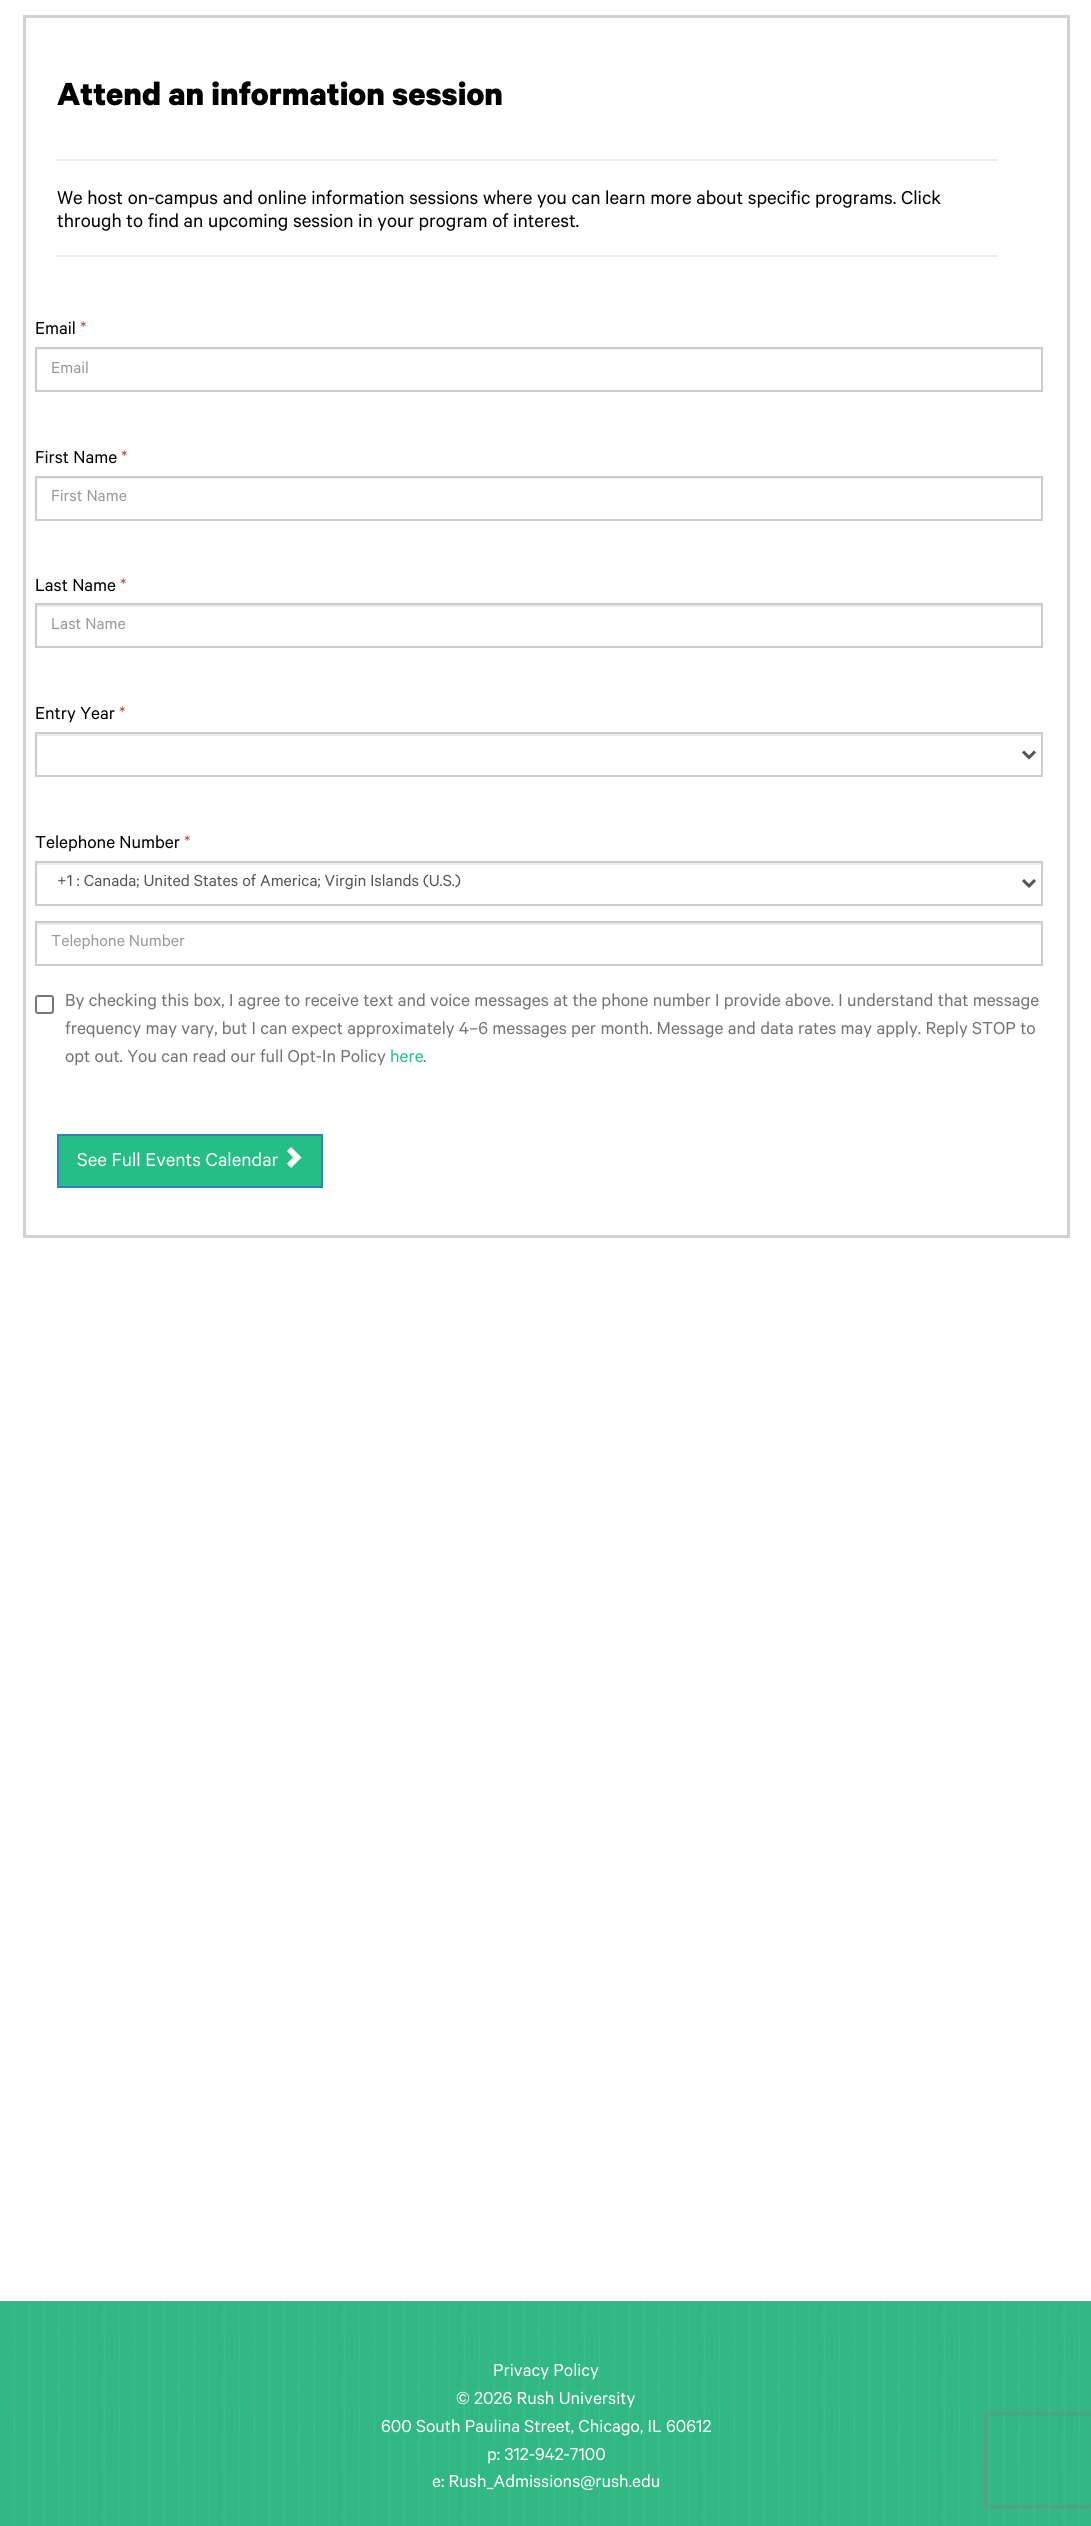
#include <cairo.h>
#include <math.h>
#include <stddef.h>


static void set_color(cairo_t *cr, unsigned color) {
    cairo_set_source_rgb(cr, (color >> 16) / 255.0, (color >> 8 & 255) / 255.0, (color & 255) / 255.0);
}

static void draw_text(cairo_t *cr, double x, double y, const char *s, const char *family, double size, int italic, int bold, unsigned color) {
    cairo_select_font_face(cr, family, italic ? CAIRO_FONT_SLANT_ITALIC : CAIRO_FONT_SLANT_NORMAL,
        bold ? CAIRO_FONT_WEIGHT_BOLD : CAIRO_FONT_WEIGHT_NORMAL);
    cairo_set_font_size(cr, size);
    set_color(cr, color);
    cairo_move_to(cr, x, y);
    cairo_show_text(cr, s);
}

static void fill_rect(cairo_t *cr, double x, double y, double w, double h, unsigned color) {
    set_color(cr, color);
    cairo_rectangle(cr, x, y, w, h);
    cairo_fill(cr);
}

static void rounded_rect(cairo_t *cr, double x, double y, double w, double h, double r) {
    cairo_new_sub_path(cr);
    cairo_arc(cr, x + w - r, y + h - r, r, 0, M_PI / 2);
    cairo_arc(cr, x + r, y + h - r, r, M_PI / 2, M_PI);
    cairo_arc(cr, x + r, y + r, r, M_PI, 1.5 * M_PI);
    cairo_arc(cr, x + w - r, y + r, r, 1.5 * M_PI, 2 * M_PI);
    cairo_close_path(cr);
}

static void draw_shadow(cairo_t *cr, double x, double y, double w, double h, double r, double blur, double alpha) {
    cairo_push_group_with_content(cr, CAIRO_CONTENT_ALPHA);
    cairo_set_operator(cr, CAIRO_OPERATOR_SOURCE);
    for (int i = 15; i >= -15 && fmin(w, h) + blur * i / 3 > 0; i -= 2) {
        double e = blur * i / 6;
        cairo_set_source_rgba(cr, 0, 0, 0, alpha * erfc((i - 1) / 8.5) / 2);
        rounded_rect(cr, x - e, y - e, w + 2 * e, h + 2 * e, fmax(0, fmin(r + e + blur * .6, fmin(w, h) / 2 + e)));
        cairo_fill(cr);
    }
    cairo_pattern_t *soft = cairo_pop_group(cr);
    cairo_mask(cr, soft);
    cairo_pattern_destroy(soft);
}

static void draw_image(cairo_t *cr, const char *path, double x, double y, double w, double h) {
    cairo_surface_t *image = cairo_image_surface_create_from_png(path);
    cairo_save(cr);
    cairo_set_source_surface(cr, image, x, y);
    cairo_rectangle(cr, x, y, w, h);
    cairo_fill(cr);
    cairo_restore(cr);
    cairo_surface_destroy(image);
}

int main(void) {
    cairo_surface_t *surface = cairo_image_surface_create(CAIRO_FORMAT_RGB24, 1091, 2526);
    cairo_t *cr = cairo_create(surface);
    cairo_font_options_t *options = cairo_font_options_create();
    cairo_font_options_set_hint_metrics(options, CAIRO_HINT_METRICS_OFF);
    cairo_font_options_set_hint_style(options, CAIRO_HINT_STYLE_NONE);
    cairo_set_font_options(cr, options);
    cairo_set_miter_limit(cr, 4);
    set_color(cr, 0xFFFFFF);
    cairo_paint(cr);
    cairo_rectangle(cr, 24.5, 16.5, 1044, 1220);
    set_color(cr, 0xD1D1D1);
    cairo_set_line_width(cr, 3);
    cairo_stroke(cr);
    fill_rect(cr, 57, 159, 941, 2, 0xEEEEEE);
    draw_text(cr, 57, 105, "Attend an information session", "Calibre", 36, 0, 1, 0x000000);
    fill_rect(cr, 57, 255, 941, 2, 0xEEEEEE);
    draw_text(cr, 57, 204, "We host on-campus and online information sessions where you can learn more about specific programs. Click", "Calibre", 21, 0, 0, 0x000000);
    draw_text(cr, 57, 227, "through to find an upcoming session in your program of interest.", "Calibre", 21, 0, 0, 0x000000);
    draw_text(cr, 35, 334, "Email", "Calibre", 19.5, 0, 0, 0x000000);
    draw_text(cr, 80, 334, "*", "Calibre", 19.5, 0, 0, 0xB94A48);
    fill_rect(cr, 36, 349, 1005, 1, 0xECECEC);
    cairo_rectangle(cr, 36, 348, 1006, 43);
    set_color(cr, 0xCCCCCC);
    cairo_set_line_width(cr, 2);
    cairo_stroke(cr);
    draw_text(cr, 51, 373, "Email", "Calibre", 18, 0, 0, 0x999999);
    draw_text(cr, 35, 463, "First Name", "Calibre", 19.5, 0, 0, 0x000000);
    draw_text(cr, 121, 463, "*", "Calibre", 19.5, 0, 0, 0xB94A48);
    fill_rect(cr, 36, 478, 1005, 1, 0xECECEC);
    cairo_rectangle(cr, 36, 477, 1006, 43);
    set_color(cr, 0xCCCCCC);
    cairo_stroke(cr);
    draw_text(cr, 51, 501, "First Name", "Calibre", 18, 0, 0, 0x999999);
    draw_text(cr, 35, 591, "Last Name", "Calibre", 19.5, 0, 0, 0x000000);
    draw_text(cr, 120, 591, "*", "Calibre", 19.5, 0, 0, 0xB94A48);
    fill_rect(cr, 36, 605, 1005, 2, 0xECECEC);
    cairo_rectangle(cr, 36, 604, 1006, 43);
    set_color(cr, 0xCCCCCC);
    cairo_stroke(cr);
    draw_text(cr, 51, 629, "Last Name", "Calibre", 18, 0, 0, 0x999999);
    draw_text(cr, 35, 719, "Entry Year", "Calibre", 19.5, 0, 0, 0x000000);
    draw_text(cr, 119, 719, "*", "Calibre", 19.5, 0, 0, 0xB94A48);
    fill_rect(cr, 36, 734, 1005, 2, 0xECECEC);
    cairo_rectangle(cr, 36, 733, 1006, 43);
    set_color(cr, 0xCCCCCC);
    cairo_stroke(cr);
    cairo_new_path(cr);
    cairo_move_to(cr, 1023, 751.5);
    cairo_line_to(cr, 1029, 757.5);
    cairo_line_to(cr, 1035, 751.5);
    set_color(cr, 0x555555);
    cairo_set_line_width(cr, 3);
    cairo_stroke(cr);
    draw_text(cr, 35, 848, "Telephone Number", "Calibre", 19.5, 0, 0, 0x000000);
    draw_text(cr, 184, 848, "*", "Calibre", 19.5, 0, 0, 0xB94A48);
    fill_rect(cr, 36, 863, 1005, 2, 0xECECEC);
    cairo_rectangle(cr, 36, 862, 1006, 43);
    set_color(cr, 0xCCCCCC);
    cairo_set_line_width(cr, 2);
    cairo_stroke(cr);
    cairo_new_path(cr);
    cairo_move_to(cr, 1023, 880);
    cairo_line_to(cr, 1029, 886);
    cairo_line_to(cr, 1035, 880);
    set_color(cr, 0x555555);
    cairo_set_line_width(cr, 3);
    cairo_stroke(cr);
    draw_text(cr, 57, 886, "+1 : Canada; United States of America; Virgin Islands (U.S.)", "Calibre", 18, 0, 0, 0x555555);
    fill_rect(cr, 36, 923, 1005, 2, 0xECECEC);
    cairo_rectangle(cr, 36, 922, 1006, 43);
    set_color(cr, 0xCCCCCC);
    cairo_set_line_width(cr, 2);
    cairo_stroke(cr);
    draw_text(cr, 51, 946, "Telephone Number", "Calibre", 18, 0, 0, 0x999999);
    rounded_rect(cr, 36, 996, 17, 17, 2);
    set_color(cr, 0x767676);
    cairo_stroke(cr);
    draw_text(cr, 65, 1006, "By checking this box, I agree to receive text and voice messages at the phone number I provide above. I understand that message", "Calibre", 19.5, 0, 0, 0x737373);
    draw_text(cr, 65, 1034, "frequency may vary, but I can expect approximately 4–6 messages per month. Message and data rates may apply. Reply STOP to", "Calibre", 19.5, 0, 0, 0x737373);
    draw_text(cr, 65, 1062, "opt out. You can read our full Opt-In Policy", "Calibre", 19.5, 0, 0, 0x737373);
    draw_text(cr, 390, 1062, "here", "Calibre", 19.5, 0, 0, 0x26BD86);
    draw_text(cr, 423, 1062, ".", "Calibre", 19.5, 0, 0, 0x737373);
    set_color(cr, 0x26BD86);
    cairo_rectangle(cr, 58, 1135, 264, 52);
    cairo_fill_preserve(cr);
    set_color(cr, 0x357EBD);
    cairo_stroke(cr);
    draw_text(cr, 77, 1166, "See Full Events Calendar", "Calibre", 21, 0, 0, 0xFFFFFF);
    cairo_new_path(cr);
    cairo_move_to(cr, 287, 1163.5);
    cairo_line_to(cr, 293, 1157.5);
    cairo_line_to(cr, 287, 1151);
    cairo_line_to(cr, 291, 1147);
    cairo_line_to(cr, 301.5, 1157.5);
    cairo_line_to(cr, 291, 1168);
    cairo_close_path(cr);
    cairo_fill(cr);
    draw_image(cr, "assets/img1.png", 0, 2301, 1091, 225);
    draw_text(cr, 493, 2376, "Privacy Policy", "Calibre", 19.5, 0, 0, 0xFFFFFF);
    draw_text(cr, 456, 2404, "© 2026 Rush University", "Calibre", 19.5, 0, 0, 0xFFFFFF);
    draw_text(cr, 381, 2432, "600 South Paulina Street, Chicago, IL 60612", "Calibre", 19.5, 0, 0, 0xFFFFFF);
    draw_text(cr, 487, 2460, "p: 312-942-7100", "Calibre", 19.5, 0, 0, 0xFFFFFF);
    draw_text(cr, 432, 2487, "e: Rush_Admissions@rush.edu", "Calibre", 19.5, 0, 0, 0xFFFFFF);
    cairo_save(cr);
    cairo_set_fill_rule(cr, CAIRO_FILL_RULE_EVEN_ODD);
    cairo_new_path(cr);
    cairo_move_to(cr, 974, 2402);
    cairo_line_to(cr, 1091, 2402);
    cairo_line_to(cr, 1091, 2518);
    cairo_line_to(cr, 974, 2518);
    cairo_close_path(cr);
    cairo_move_to(cr, 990, 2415);
    cairo_line_to(cr, 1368, 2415);
    cairo_curve_to(cr, 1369.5, 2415, 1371, 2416.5, 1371, 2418);
    cairo_line_to(cr, 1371, 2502);
    cairo_curve_to(cr, 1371, 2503.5, 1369.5, 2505, 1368, 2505);
    cairo_line_to(cr, 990, 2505);
    cairo_curve_to(cr, 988.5, 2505, 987, 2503.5, 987, 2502);
    cairo_line_to(cr, 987, 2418);
    cairo_curve_to(cr, 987, 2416.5, 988.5, 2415, 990, 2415);
    cairo_close_path(cr);
    cairo_clip(cr);
    set_color(cr, 0x808080);
    draw_shadow(cr, 987, 2415, 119, 90, 3, 4, 1);
    cairo_restore(cr);
    cairo_surface_write_to_png(surface, "output.png");
    cairo_font_options_destroy(options);
    cairo_destroy(cr);
    cairo_surface_destroy(surface);
    return 0;
}
